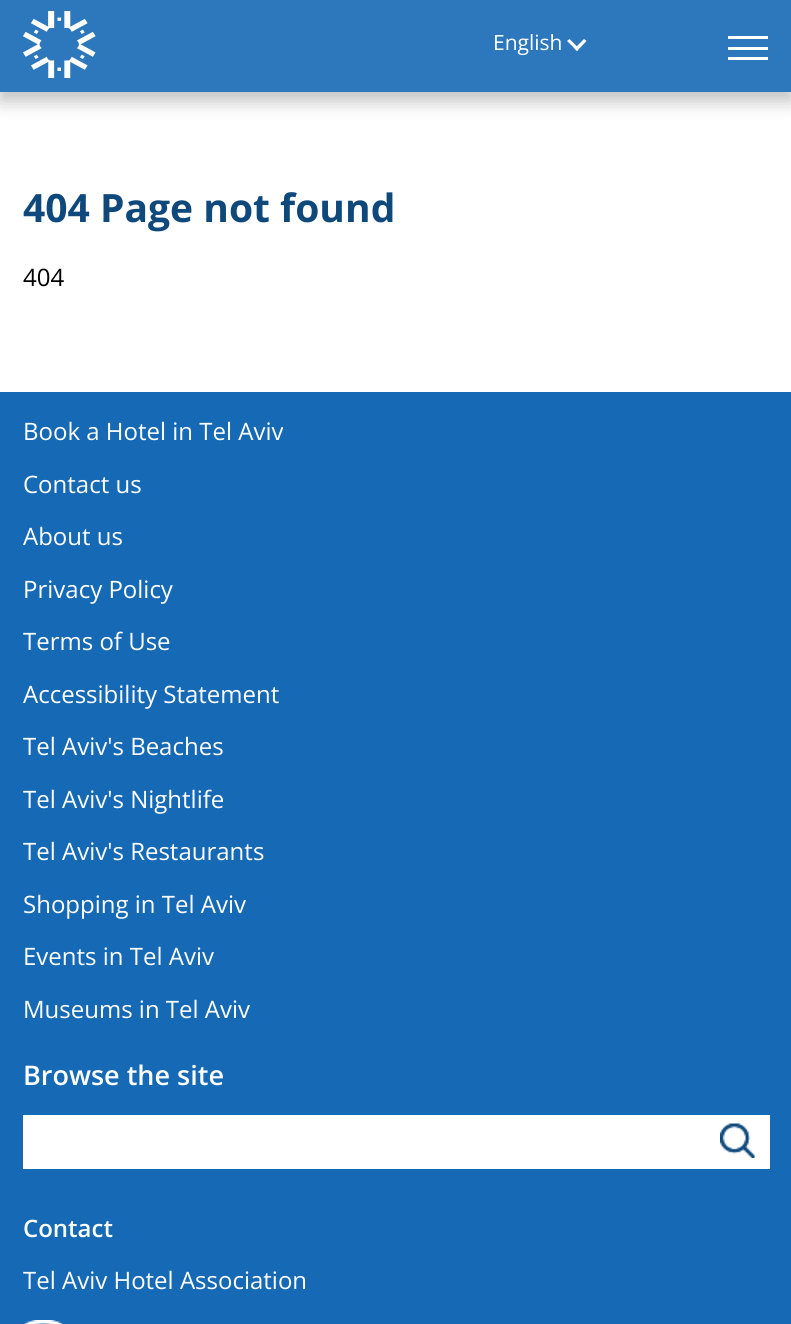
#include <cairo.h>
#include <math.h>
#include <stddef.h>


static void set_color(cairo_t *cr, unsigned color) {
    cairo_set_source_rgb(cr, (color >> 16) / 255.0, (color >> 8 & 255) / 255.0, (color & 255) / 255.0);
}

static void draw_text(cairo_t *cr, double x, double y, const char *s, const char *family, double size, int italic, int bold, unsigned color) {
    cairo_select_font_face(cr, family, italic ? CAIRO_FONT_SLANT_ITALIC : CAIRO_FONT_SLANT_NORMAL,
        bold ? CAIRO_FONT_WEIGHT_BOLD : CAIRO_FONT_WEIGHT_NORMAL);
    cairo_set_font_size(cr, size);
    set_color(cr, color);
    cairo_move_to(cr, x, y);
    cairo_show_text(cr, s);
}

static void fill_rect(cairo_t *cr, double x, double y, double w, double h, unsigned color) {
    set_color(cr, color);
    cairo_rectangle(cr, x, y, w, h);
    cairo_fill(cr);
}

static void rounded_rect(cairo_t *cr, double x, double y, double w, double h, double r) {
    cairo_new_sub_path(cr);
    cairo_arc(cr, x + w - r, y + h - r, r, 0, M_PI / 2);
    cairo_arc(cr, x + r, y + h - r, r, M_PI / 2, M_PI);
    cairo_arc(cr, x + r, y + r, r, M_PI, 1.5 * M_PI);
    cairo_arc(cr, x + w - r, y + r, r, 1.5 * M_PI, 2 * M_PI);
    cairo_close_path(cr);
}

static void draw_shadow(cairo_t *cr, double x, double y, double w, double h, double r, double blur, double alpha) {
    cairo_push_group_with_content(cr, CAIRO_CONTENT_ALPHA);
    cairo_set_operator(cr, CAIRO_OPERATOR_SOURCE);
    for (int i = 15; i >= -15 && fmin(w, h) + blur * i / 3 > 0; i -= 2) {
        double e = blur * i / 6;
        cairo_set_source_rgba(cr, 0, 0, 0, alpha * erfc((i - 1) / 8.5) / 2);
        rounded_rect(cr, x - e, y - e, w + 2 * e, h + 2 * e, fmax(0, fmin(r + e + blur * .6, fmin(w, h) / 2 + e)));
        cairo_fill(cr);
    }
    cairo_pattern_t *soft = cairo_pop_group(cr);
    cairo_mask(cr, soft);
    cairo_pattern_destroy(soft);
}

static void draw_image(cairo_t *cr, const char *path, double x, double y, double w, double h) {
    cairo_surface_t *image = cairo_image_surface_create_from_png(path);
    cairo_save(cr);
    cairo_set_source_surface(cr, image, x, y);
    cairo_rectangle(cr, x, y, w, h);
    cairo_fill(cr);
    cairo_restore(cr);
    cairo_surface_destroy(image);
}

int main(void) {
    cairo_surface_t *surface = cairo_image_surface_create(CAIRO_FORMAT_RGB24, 791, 1324);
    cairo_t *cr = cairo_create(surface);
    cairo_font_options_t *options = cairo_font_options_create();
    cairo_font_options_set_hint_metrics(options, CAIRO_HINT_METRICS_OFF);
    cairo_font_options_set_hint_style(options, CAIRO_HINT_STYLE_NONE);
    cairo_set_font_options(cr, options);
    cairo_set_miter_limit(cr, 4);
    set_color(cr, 0xFFFFFF);
    cairo_paint(cr);
    set_color(cr, 0x000000);
    draw_shadow(cr, 0, 9, 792, 92, 0, 9, 0.25);
    fill_rect(cr, 0, 0, 791, 92, 0x2D78BC);
    draw_image(cr, "assets/img1.png", 23, 11, 73, 67);
    draw_text(cr, 493, 50, "English", "Open Sans", 21, 0, 0, 0xFFFFFF);
    cairo_new_path(cr);
    cairo_move_to(cr, 584, 39);
    cairo_line_to(cr, 586.5, 41);
    cairo_line_to(cr, 577, 51);
    cairo_line_to(cr, 574.5, 48.5);
    cairo_close_path(cr);
    cairo_fill(cr);
    cairo_new_path(cr);
    cairo_move_to(cr, 569.5, 39);
    cairo_line_to(cr, 579, 48.5);
    cairo_line_to(cr, 577, 51);
    cairo_line_to(cr, 567, 41);
    cairo_close_path(cr);
    cairo_fill(cr);
    fill_rect(cr, 728, 36, 40, 3, 0xFFFFFF);
    fill_rect(cr, 728, 47, 40, 3, 0xFFFFFF);
    fill_rect(cr, 728, 57, 40, 3, 0xFFFFFF);
    draw_text(cr, 23, 222, "404 Page not found", "Open Sans", 39, 0, 1, 0x0F497B);
    draw_text(cr, 23, 286, "404", "Open Sans", 24, 0, 0, 0x000000);
    fill_rect(cr, 0, 392, 791, 932, 0x1669B5);
    draw_text(cr, 23, 440, "Book a Hotel in Tel Aviv", "Open Sans", 24, 0, 0, 0xFFFFFF);
    draw_text(cr, 23, 493, "Contact us", "Open Sans", 24, 0, 0, 0xFFFFFF);
    draw_text(cr, 23, 545, "About us", "Open Sans", 24, 0, 0, 0xFFFFFF);
    draw_text(cr, 23, 598, "Privacy Policy", "Open Sans", 24, 0, 0, 0xFFFFFF);
    draw_text(cr, 23, 650, "Terms of Use", "Open Sans", 24, 0, 0, 0xFFFFFF);
    draw_text(cr, 23, 703, "Accessibility Statement", "Open Sans", 24, 0, 0, 0xFFFFFF);
    draw_text(cr, 23, 755, "Tel Aviv's Beaches", "Open Sans", 24, 0, 0, 0xFFFFFF);
    draw_text(cr, 23, 808, "Tel Aviv's Nightlife", "Open Sans", 24, 0, 0, 0xFFFFFF);
    draw_text(cr, 23, 860, "Tel Aviv's Restaurants", "Open Sans", 24, 0, 0, 0xFFFFFF);
    draw_text(cr, 23, 913, "Shopping in Tel Aviv", "Open Sans", 24, 0, 0, 0xFFFFFF);
    draw_text(cr, 23, 965, "Events in Tel Aviv", "Open Sans", 24, 0, 0, 0xFFFFFF);
    draw_text(cr, 23, 1018, "Museums in Tel Aviv", "Open Sans", 24, 0, 0, 0xFFFFFF);
    draw_text(cr, 23, 1085, "Browse the site", "Open Sans SemiBold", 27, 0, 0, 0xFFFFFF);
    fill_rect(cr, 23, 1115, 747, 54, 0xFFFFFF);
    draw_image(cr, "assets/img2.png", 720, 1123, 35, 35);
    draw_text(cr, 23, 1237, "Contact", "Open Sans SemiBold", 24, 0, 0, 0xFFFFFF);
    draw_text(cr, 23, 1289, "Tel Aviv Hotel Association", "Open Sans", 24, 0, 0, 0xFFFFFF);
    draw_image(cr, "assets/img3.png", 24, 1320, 40, 4);
    cairo_surface_write_to_png(surface, "output.png");
    cairo_font_options_destroy(options);
    cairo_destroy(cr);
    cairo_surface_destroy(surface);
    return 0;
}
